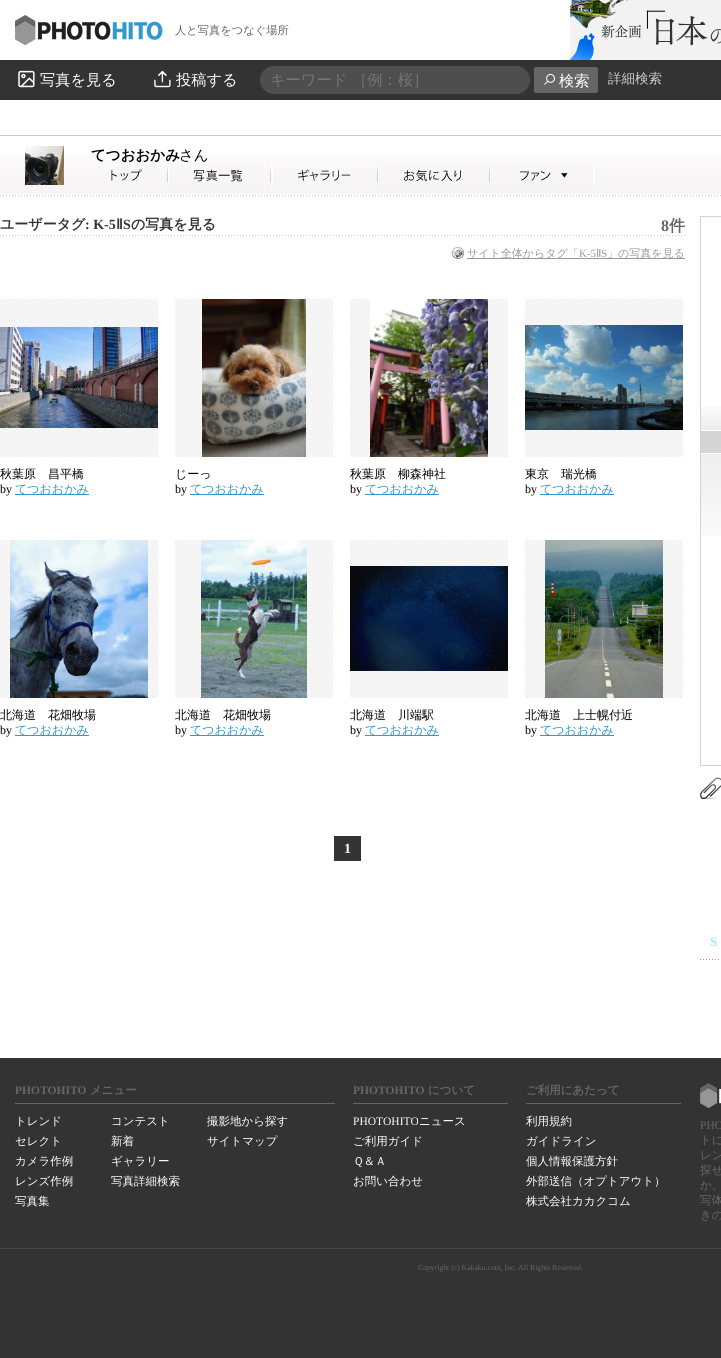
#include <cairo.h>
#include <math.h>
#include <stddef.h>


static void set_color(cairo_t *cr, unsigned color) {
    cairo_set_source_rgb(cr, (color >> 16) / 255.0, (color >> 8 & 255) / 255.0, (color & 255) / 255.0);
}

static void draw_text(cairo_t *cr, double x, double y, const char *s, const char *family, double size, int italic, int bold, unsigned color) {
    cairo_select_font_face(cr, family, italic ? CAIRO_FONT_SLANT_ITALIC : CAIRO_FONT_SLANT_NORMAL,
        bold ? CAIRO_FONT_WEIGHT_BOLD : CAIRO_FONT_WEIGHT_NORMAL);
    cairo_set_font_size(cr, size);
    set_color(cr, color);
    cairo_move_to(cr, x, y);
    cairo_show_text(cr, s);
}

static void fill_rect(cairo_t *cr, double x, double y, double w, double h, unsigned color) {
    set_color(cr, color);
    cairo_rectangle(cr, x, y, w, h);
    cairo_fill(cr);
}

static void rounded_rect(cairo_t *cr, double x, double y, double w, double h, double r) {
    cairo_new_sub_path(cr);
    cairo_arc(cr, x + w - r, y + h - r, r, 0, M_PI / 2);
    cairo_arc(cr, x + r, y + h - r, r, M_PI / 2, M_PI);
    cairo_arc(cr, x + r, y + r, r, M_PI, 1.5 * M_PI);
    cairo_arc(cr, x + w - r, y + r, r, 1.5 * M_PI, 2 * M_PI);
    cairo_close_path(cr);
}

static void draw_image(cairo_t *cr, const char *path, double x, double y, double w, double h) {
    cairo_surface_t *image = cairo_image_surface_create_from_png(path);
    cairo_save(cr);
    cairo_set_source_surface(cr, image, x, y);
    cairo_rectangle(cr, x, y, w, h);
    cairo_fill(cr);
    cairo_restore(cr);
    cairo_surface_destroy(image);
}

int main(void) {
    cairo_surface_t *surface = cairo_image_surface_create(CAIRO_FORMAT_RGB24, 721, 1358);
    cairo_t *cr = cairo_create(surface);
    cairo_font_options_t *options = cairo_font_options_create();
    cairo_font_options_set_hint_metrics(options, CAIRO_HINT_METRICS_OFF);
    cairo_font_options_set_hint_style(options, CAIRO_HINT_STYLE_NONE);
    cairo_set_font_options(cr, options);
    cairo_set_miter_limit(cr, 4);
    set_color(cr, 0xFFFFFF);
    cairo_paint(cr);
    draw_image(cr, "assets/img1.png", 15, 15, 148, 30);
    draw_text(cr, 175, 34, "人と写真をつなぐ場所", "WenQuanYi Zen Hei Medium", 11.25, 0, 0, 0x666666);
    draw_image(cr, "assets/img2.png", 570, 0, 151, 60);
    fill_rect(cr, 0, 60, 721, 40, 0x333333);
    draw_image(cr, "assets/img3.png", 18, 70, 17, 18);
    draw_text(cr, 40, 85, "写真を見る", "WenQuanYi Zen Hei Medium", 15.25, 0, 0, 0xFFFFFF);
    draw_image(cr, "assets/img4.png", 154, 70, 17, 18);
    draw_text(cr, 176, 85, "投稿する", "WenQuanYi Zen Hei Medium", 15.25, 0, 0, 0xFFFFFF);
    set_color(cr, 0x4E4E4E);
    rounded_rect(cr, 260, 66, 270, 28, 14);
    cairo_fill(cr);
    draw_text(cr, 270, 85, "キーワード ［例：桜］", "WenQuanYi Zen Hei Medium", 15.25, 0, 0, 0x757575);
    set_color(cr, 0x666666);
    rounded_rect(cr, 534, 67, 64, 26, 2);
    cairo_fill(cr);
    draw_image(cr, "assets/img5.png", 544, 73, 11, 12);
    draw_text(cr, 559, 86, "検索", "WenQuanYi Zen Hei Medium", 15.25, 0, 0, 0xFFFFFF);
    draw_text(cr, 608, 83, "詳細検索", "WenQuanYi Zen Hei Medium", 13.5, 0, 0, 0xCCCCCC);
    fill_rect(cr, 0, 135, 721, 1, 0xCCCCCC);
    draw_image(cr, "assets/img6.png", 0, 155, 721, 41);
    draw_image(cr, "assets/img7.png", 25, 146, 39, 39);
    draw_text(cr, 91, 160, "てつおおかみ", "WenQuanYi Zen Hei", 14.5, 0, 1, 0x000000);
    draw_text(cr, 179, 160, "さん", "WenQuanYi Zen Hei Medium", 14.5, 0, 0, 0x000000);
    draw_image(cr, "assets/img8.png", 111, 169, 57, 13);
    draw_image(cr, "assets/img9.png", 168, 164, 103, 23);
    fill_rect(cr, 271, 164, 1, 23, 0xFFFFFF);
    draw_image(cr, "assets/img10.png", 272, 169, 106, 13);
    draw_image(cr, "assets/img11.png", 378, 164, 112, 23);
    draw_image(cr, "assets/img12.png", 490, 164, 104, 23);
    fill_rect(cr, 594, 164, 1, 23, 0xFFFFFF);
    draw_image(cr, "assets/img13.png", 0, 235, 685, 1);
    draw_text(cr, 0, 229, "ユーザータグ", "WenQuanYi Zen Hei", 14, 0, 1, 0x333333);
    draw_text(cr, 85, 229, ": K-5", "Liberation Serif", 14, 0, 1, 0x333333);
    draw_text(cr, 116, 229, "Ⅱ", "DejaVu Sans", 14, 0, 1, 0x333333);
    draw_text(cr, 123, 229, "S", "Liberation Serif", 14, 0, 1, 0x333333);
    draw_text(cr, 131, 229, "の写真を見る", "WenQuanYi Zen Hei", 14, 0, 1, 0x333333);
    draw_text(cr, 661, 231, "8", "Liberation Serif", 16, 0, 1, 0x666666);
    draw_text(cr, 669, 231, "件", "WenQuanYi Zen Hei", 16, 0, 1, 0x666666);
    draw_image(cr, "assets/img14.png", 451, 246, 14, 13);
    fill_rect(cr, 467, 258, 218, 1, 0x999999);
    draw_text(cr, 467, 257, "サイト全体からタグ「", "WenQuanYi Zen Hei Medium", 11, 0, 0, 0x999999);
    draw_text(cr, 579, 257, "K-5", "Liberation Serif", 11, 0, 0, 0x999999);
    draw_text(cr, 596, 257, "Ⅱ", "DejaVu Sans", 11, 0, 0, 0x999999);
    draw_text(cr, 601, 257, "S", "Liberation Serif", 11, 0, 0, 0x999999);
    draw_text(cr, 607, 257, "」の写真を見る", "WenQuanYi Zen Hei Medium", 11, 0, 0, 0x999999);
    draw_image(cr, "assets/img15.png", 0, 299, 158, 158);
    draw_image(cr, "assets/img16.png", 0, 327, 158, 101);
    draw_text(cr, 0, 478, "秋葉原　昌平橋", "WenQuanYi Zen Hei Medium", 12, 0, 0, 0x000000);
    draw_text(cr, 0, 493, "by", "Liberation Serif", 12, 0, 0, 0x000000);
    fill_rect(cr, 15, 494, 74, 1, 0x3399CC);
    draw_text(cr, 15, 493, "てつおおかみ", "WenQuanYi Zen Hei Medium", 12, 0, 0, 0x3399CC);
    draw_image(cr, "assets/img15.png", 175, 299, 158, 158);
    draw_image(cr, "assets/img17.png", 202, 299, 104, 158);
    draw_text(cr, 175, 478, "じーっ", "WenQuanYi Zen Hei Medium", 12, 0, 0, 0x000000);
    draw_text(cr, 175, 493, "by", "Liberation Serif", 12, 0, 0, 0x000000);
    fill_rect(cr, 190, 494, 74, 1, 0x3399CC);
    draw_text(cr, 190, 493, "てつおおかみ", "WenQuanYi Zen Hei Medium", 12, 0, 0, 0x3399CC);
    draw_image(cr, "assets/img15.png", 350, 299, 158, 158);
    draw_image(cr, "assets/img18.png", 370, 299, 118, 158);
    draw_text(cr, 350, 478, "秋葉原　柳森神社", "WenQuanYi Zen Hei Medium", 12, 0, 0, 0x000000);
    draw_text(cr, 350, 493, "by", "Liberation Serif", 12, 0, 0, 0x000000);
    fill_rect(cr, 365, 494, 74, 1, 0x3399CC);
    draw_text(cr, 365, 493, "てつおおかみ", "WenQuanYi Zen Hei Medium", 12, 0, 0, 0x3399CC);
    draw_image(cr, "assets/img15.png", 525, 299, 158, 158);
    draw_image(cr, "assets/img19.png", 525, 325, 158, 105);
    draw_text(cr, 525, 478, "東京　瑞光橋", "WenQuanYi Zen Hei Medium", 12, 0, 0, 0x000000);
    draw_text(cr, 525, 493, "by", "Liberation Serif", 12, 0, 0, 0x000000);
    fill_rect(cr, 540, 494, 74, 1, 0x3399CC);
    draw_text(cr, 540, 493, "てつおおかみ", "WenQuanYi Zen Hei Medium", 12, 0, 0, 0x3399CC);
    draw_image(cr, "assets/img15.png", 0, 540, 158, 158);
    draw_image(cr, "assets/img20.png", 10, 540, 138, 158);
    draw_text(cr, 0, 719, "北海道　花畑牧場", "WenQuanYi Zen Hei Medium", 12, 0, 0, 0x000000);
    draw_text(cr, 0, 734, "by", "Liberation Serif", 12, 0, 0, 0x000000);
    fill_rect(cr, 15, 735, 74, 1, 0x3399CC);
    draw_text(cr, 15, 734, "てつおおかみ", "WenQuanYi Zen Hei Medium", 12, 0, 0, 0x3399CC);
    draw_image(cr, "assets/img15.png", 175, 540, 158, 158);
    draw_image(cr, "assets/img21.png", 201, 540, 106, 158);
    draw_text(cr, 175, 719, "北海道　花畑牧場", "WenQuanYi Zen Hei Medium", 12, 0, 0, 0x000000);
    draw_text(cr, 175, 734, "by", "Liberation Serif", 12, 0, 0, 0x000000);
    fill_rect(cr, 190, 735, 74, 1, 0x3399CC);
    draw_text(cr, 190, 734, "てつおおかみ", "WenQuanYi Zen Hei Medium", 12, 0, 0, 0x3399CC);
    draw_image(cr, "assets/img15.png", 350, 540, 158, 158);
    draw_image(cr, "assets/img22.png", 350, 566, 158, 105);
    draw_text(cr, 350, 719, "北海道　川端駅", "WenQuanYi Zen Hei Medium", 12, 0, 0, 0x000000);
    draw_text(cr, 350, 734, "by", "Liberation Serif", 12, 0, 0, 0x000000);
    fill_rect(cr, 365, 735, 74, 1, 0x3399CC);
    draw_text(cr, 365, 734, "てつおおかみ", "WenQuanYi Zen Hei Medium", 12, 0, 0, 0x3399CC);
    draw_image(cr, "assets/img15.png", 525, 540, 158, 158);
    draw_image(cr, "assets/img23.png", 545, 540, 118, 158);
    draw_text(cr, 525, 719, "北海道　上士幌付近", "WenQuanYi Zen Hei Medium", 12, 0, 0, 0x000000);
    draw_text(cr, 525, 734, "by", "Liberation Serif", 12, 0, 0, 0x000000);
    fill_rect(cr, 540, 735, 74, 1, 0x3399CC);
    draw_text(cr, 540, 734, "てつおおかみ", "WenQuanYi Zen Hei Medium", 12, 0, 0, 0x3399CC);
    fill_rect(cr, 334, 836, 27, 25, 0x343434);
    draw_text(cr, 344, 853, "1", "Liberation Serif", 14, 0, 1, 0xFFFFFF);
    cairo_rectangle(cr, 700.5, 216.5, 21, 549);
    set_color(cr, 0xD3D3D3);
    cairo_set_line_width(cr, 1);
    cairo_stroke(cr);
    draw_image(cr, "assets/img24.png", 701, 407, 20, 23);
    fill_rect(cr, 701, 431, 20, 22, 0xD5D5D5);
    draw_image(cr, "assets/img25.png", 701, 454, 20, 82);
    draw_image(cr, "assets/img26.png", 700, 959, 19, 1);
    draw_image(cr, "assets/img27.png", 700, 777, 21, 23);
    draw_text(cr, 710, 946, "S", "Liberation Serif", 13, 0, 1, 0xA1E5FF);
    fill_rect(cr, 0, 1058, 721, 300, 0x333333);
    fill_rect(cr, 15, 1103, 320, 1, 0x666666);
    draw_text(cr, 15, 1094, "PHOTOHITO", "Liberation Serif", 11.5, 0, 1, 0x666666);
    draw_text(cr, 90, 1094, "メニュー", "WenQuanYi Zen Hei", 11.5, 0, 1, 0x666666);
    draw_text(cr, 15, 1125, "トレンド", "WenQuanYi Zen Hei Medium", 11.5, 0, 0, 0xFFFFFF);
    draw_text(cr, 15, 1145, "セレクト", "WenQuanYi Zen Hei Medium", 11.5, 0, 0, 0xFFFFFF);
    draw_text(cr, 15, 1165, "カメラ作例", "WenQuanYi Zen Hei Medium", 11.5, 0, 0, 0xFFFFFF);
    draw_text(cr, 15, 1185, "レンズ作例", "WenQuanYi Zen Hei Medium", 11.5, 0, 0, 0xFFFFFF);
    draw_text(cr, 15, 1205, "写真集", "WenQuanYi Zen Hei Medium", 11.5, 0, 0, 0xFFFFFF);
    draw_text(cr, 111, 1125, "コンテスト", "WenQuanYi Zen Hei Medium", 11.5, 0, 0, 0xFFFFFF);
    draw_text(cr, 111, 1145, "新着", "WenQuanYi Zen Hei Medium", 11.5, 0, 0, 0xFFFFFF);
    draw_text(cr, 111, 1165, "ギャラリー", "WenQuanYi Zen Hei Medium", 11.5, 0, 0, 0xFFFFFF);
    draw_text(cr, 111, 1185, "写真詳細検索", "WenQuanYi Zen Hei Medium", 11.5, 0, 0, 0xFFFFFF);
    draw_text(cr, 207, 1125, "撮影地から探す", "WenQuanYi Zen Hei Medium", 11.5, 0, 0, 0xFFFFFF);
    draw_text(cr, 207, 1145, "サイトマップ", "WenQuanYi Zen Hei Medium", 11.5, 0, 0, 0xFFFFFF);
    fill_rect(cr, 353, 1103, 155, 1, 0x666666);
    draw_text(cr, 353, 1094, "PHOTOHITO", "Liberation Serif", 11.5, 0, 1, 0x666666);
    draw_text(cr, 428, 1094, "について", "WenQuanYi Zen Hei", 11.5, 0, 1, 0x666666);
    draw_text(cr, 353, 1125, "PHOTOHITO", "Liberation Serif", 11.5, 0, 0, 0xFFFFFF);
    draw_text(cr, 419, 1125, "ニュース", "WenQuanYi Zen Hei Medium", 11.5, 0, 0, 0xFFFFFF);
    draw_text(cr, 353, 1145, "ご利用ガイド", "WenQuanYi Zen Hei Medium", 11.5, 0, 0, 0xFFFFFF);
    draw_text(cr, 353, 1165, "Ｑ＆Ａ", "WenQuanYi Zen Hei Medium", 11.5, 0, 0, 0xFFFFFF);
    draw_text(cr, 353, 1185, "お問い合わせ", "WenQuanYi Zen Hei Medium", 11.5, 0, 0, 0xFFFFFF);
    fill_rect(cr, 526, 1103, 155, 1, 0x666666);
    draw_text(cr, 526, 1094, "ご利用にあたって", "WenQuanYi Zen Hei", 11.5, 0, 1, 0x666666);
    draw_text(cr, 526, 1125, "利用規約", "WenQuanYi Zen Hei Medium", 11.5, 0, 0, 0xFFFFFF);
    draw_text(cr, 526, 1145, "ガイドライン", "WenQuanYi Zen Hei Medium", 11.5, 0, 0, 0xFFFFFF);
    draw_text(cr, 526, 1165, "個人情報保護方針", "WenQuanYi Zen Hei Medium", 11.5, 0, 0, 0xFFFFFF);
    draw_text(cr, 526, 1185, "外部送信（オプトアウト）", "WenQuanYi Zen Hei Medium", 11.5, 0, 0, 0xFFFFFF);
    draw_text(cr, 526, 1205, "株式会社カカクコム", "WenQuanYi Zen Hei Medium", 11.5, 0, 0, 0xFFFFFF);
    draw_image(cr, "assets/img28.png", 700, 1083, 21, 25);
    draw_text(cr, 700, 1129, "PHO", "Liberation Serif", 11.5, 0, 0, 0x666666);
    draw_text(cr, 700, 1144, "トに", "WenQuanYi Zen Hei Medium", 11.5, 0, 0, 0x666666);
    draw_text(cr, 700, 1159, "レン", "WenQuanYi Zen Hei Medium", 11.5, 0, 0, 0x666666);
    draw_text(cr, 700, 1174, "探せ", "WenQuanYi Zen Hei Medium", 11.5, 0, 0, 0x666666);
    draw_text(cr, 700, 1189, "か、", "WenQuanYi Zen Hei Medium", 11.5, 0, 0, 0x666666);
    draw_text(cr, 700, 1204, "写体", "WenQuanYi Zen Hei Medium", 11.5, 0, 0, 0x666666);
    draw_text(cr, 700, 1219, "きの", "WenQuanYi Zen Hei Medium", 11.5, 0, 0, 0x666666);
    fill_rect(cr, 0, 1248, 721, 1, 0x444444);
    draw_text(cr, 418, 1270, "Copyright (c) Kakaku.com, Inc. All Rights Reserved.", "Liberation Serif", 7.7, 0, 0, 0x666666);
    cairo_surface_write_to_png(surface, "output.png");
    cairo_font_options_destroy(options);
    cairo_destroy(cr);
    cairo_surface_destroy(surface);
    return 0;
}
